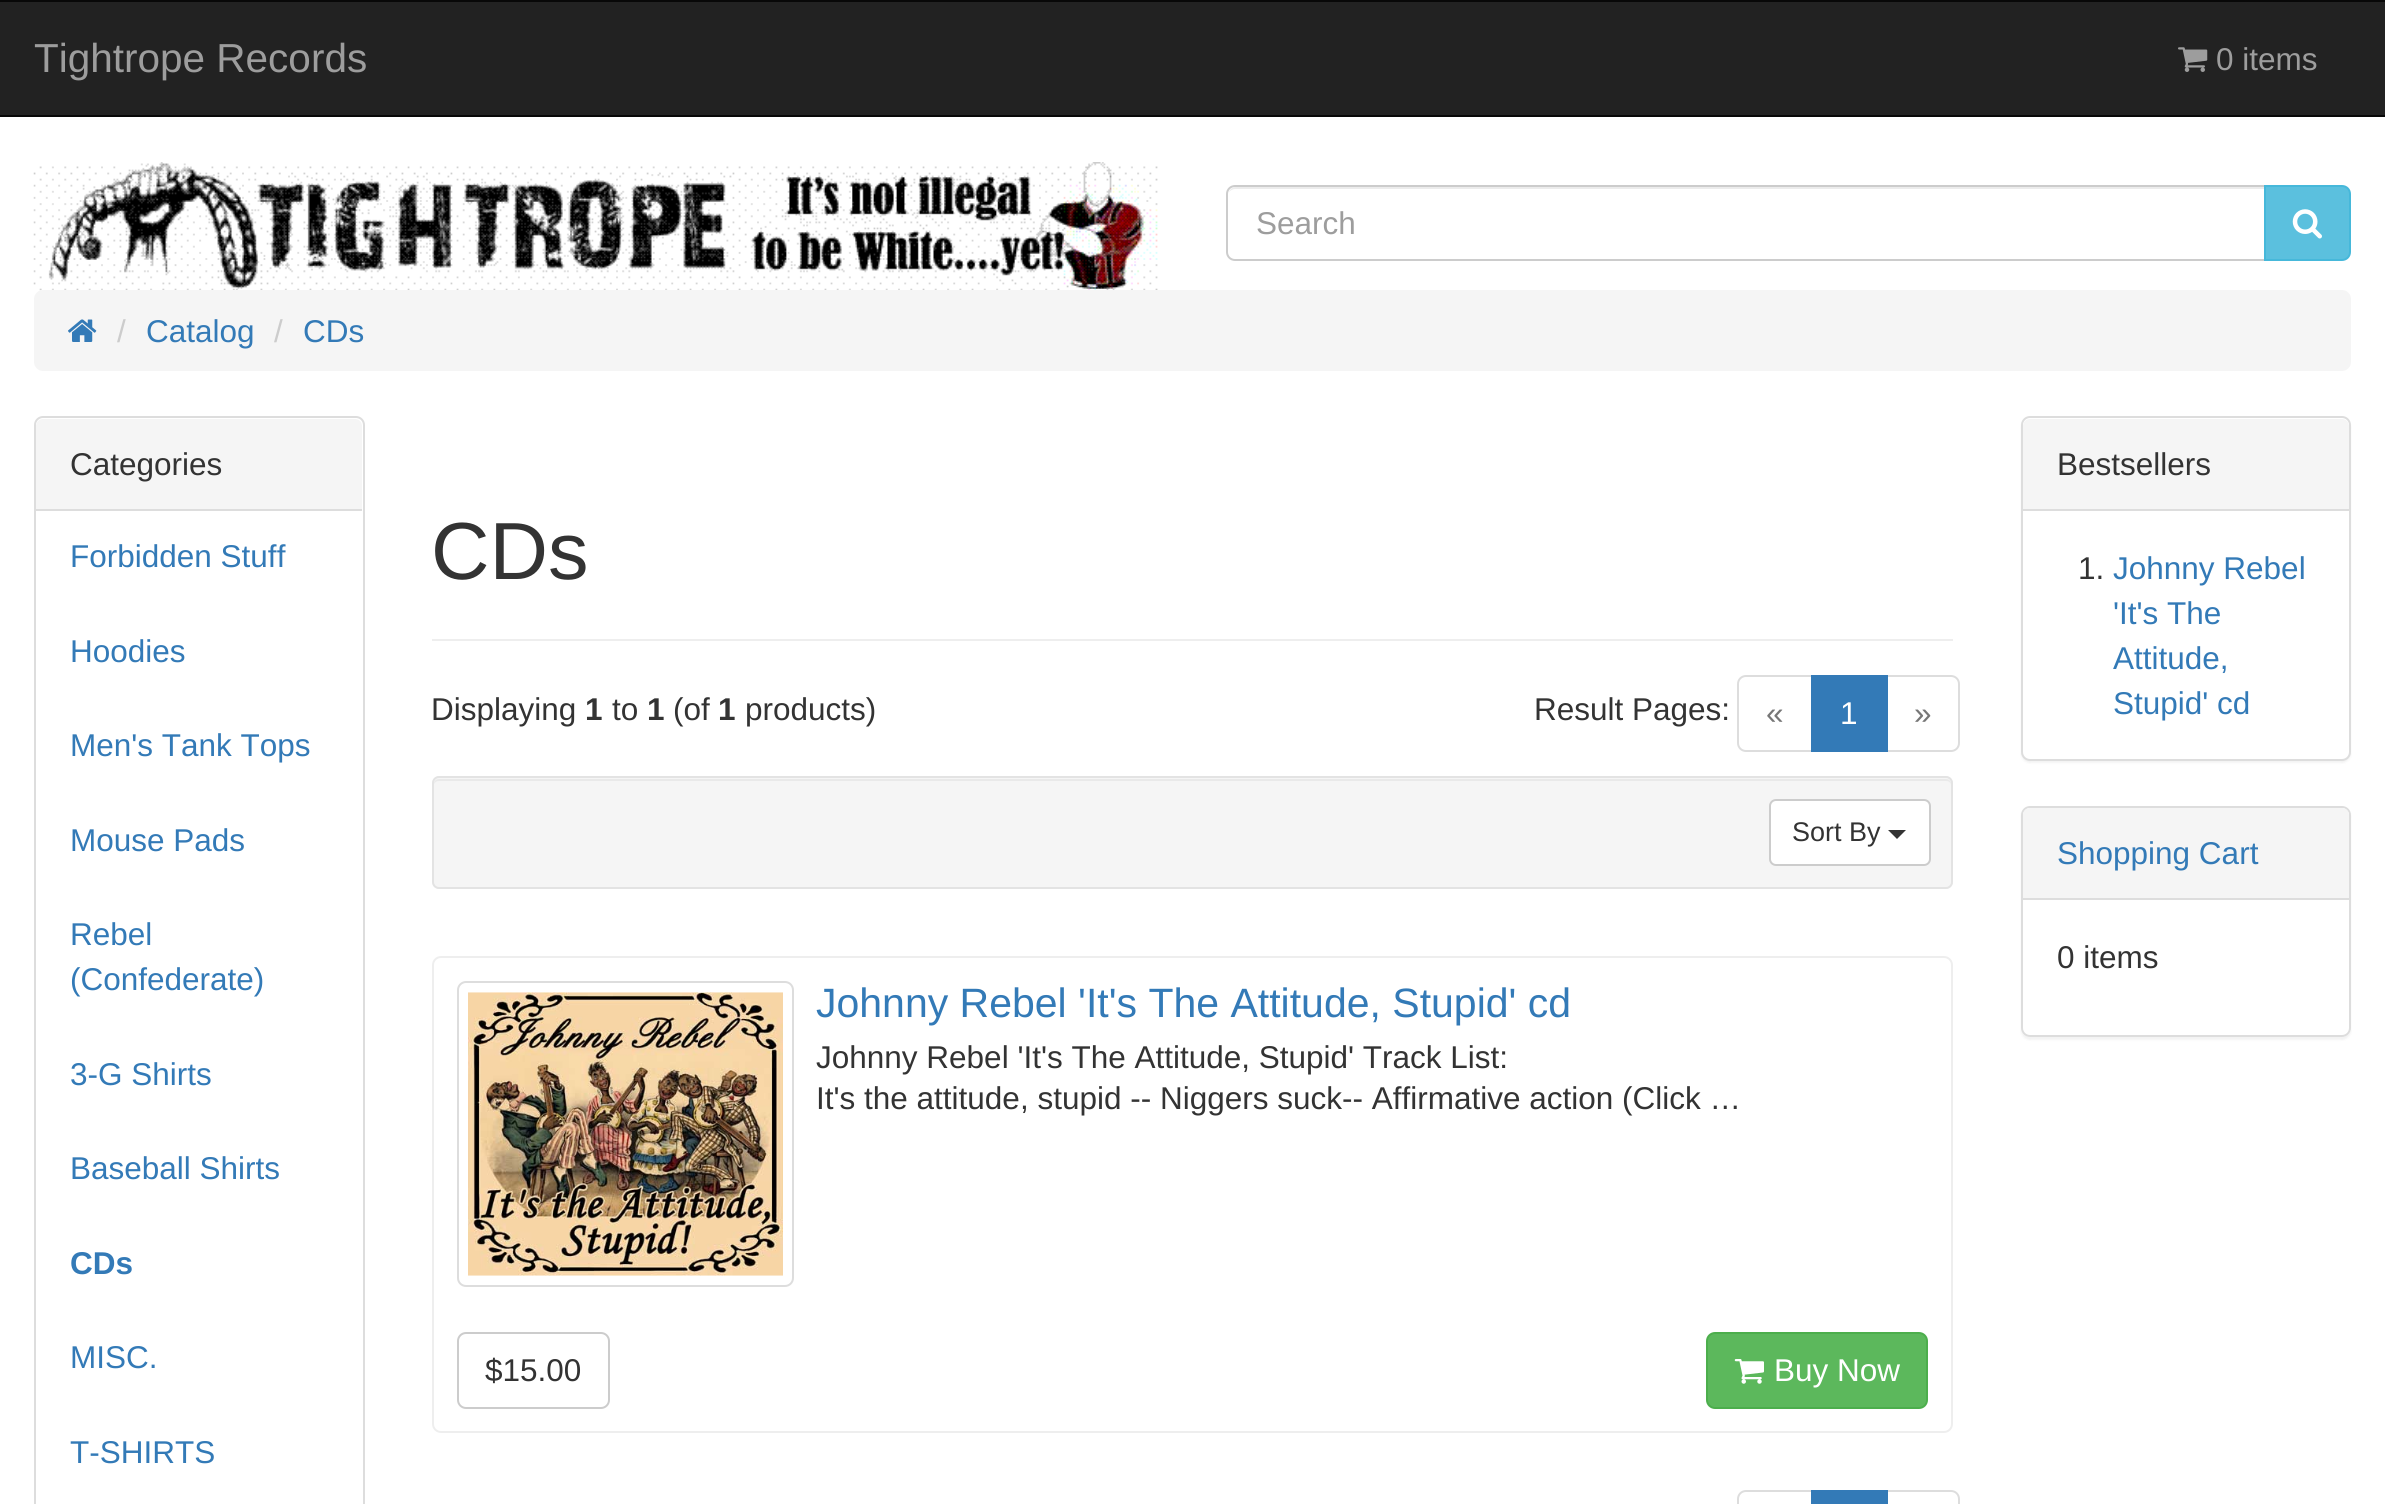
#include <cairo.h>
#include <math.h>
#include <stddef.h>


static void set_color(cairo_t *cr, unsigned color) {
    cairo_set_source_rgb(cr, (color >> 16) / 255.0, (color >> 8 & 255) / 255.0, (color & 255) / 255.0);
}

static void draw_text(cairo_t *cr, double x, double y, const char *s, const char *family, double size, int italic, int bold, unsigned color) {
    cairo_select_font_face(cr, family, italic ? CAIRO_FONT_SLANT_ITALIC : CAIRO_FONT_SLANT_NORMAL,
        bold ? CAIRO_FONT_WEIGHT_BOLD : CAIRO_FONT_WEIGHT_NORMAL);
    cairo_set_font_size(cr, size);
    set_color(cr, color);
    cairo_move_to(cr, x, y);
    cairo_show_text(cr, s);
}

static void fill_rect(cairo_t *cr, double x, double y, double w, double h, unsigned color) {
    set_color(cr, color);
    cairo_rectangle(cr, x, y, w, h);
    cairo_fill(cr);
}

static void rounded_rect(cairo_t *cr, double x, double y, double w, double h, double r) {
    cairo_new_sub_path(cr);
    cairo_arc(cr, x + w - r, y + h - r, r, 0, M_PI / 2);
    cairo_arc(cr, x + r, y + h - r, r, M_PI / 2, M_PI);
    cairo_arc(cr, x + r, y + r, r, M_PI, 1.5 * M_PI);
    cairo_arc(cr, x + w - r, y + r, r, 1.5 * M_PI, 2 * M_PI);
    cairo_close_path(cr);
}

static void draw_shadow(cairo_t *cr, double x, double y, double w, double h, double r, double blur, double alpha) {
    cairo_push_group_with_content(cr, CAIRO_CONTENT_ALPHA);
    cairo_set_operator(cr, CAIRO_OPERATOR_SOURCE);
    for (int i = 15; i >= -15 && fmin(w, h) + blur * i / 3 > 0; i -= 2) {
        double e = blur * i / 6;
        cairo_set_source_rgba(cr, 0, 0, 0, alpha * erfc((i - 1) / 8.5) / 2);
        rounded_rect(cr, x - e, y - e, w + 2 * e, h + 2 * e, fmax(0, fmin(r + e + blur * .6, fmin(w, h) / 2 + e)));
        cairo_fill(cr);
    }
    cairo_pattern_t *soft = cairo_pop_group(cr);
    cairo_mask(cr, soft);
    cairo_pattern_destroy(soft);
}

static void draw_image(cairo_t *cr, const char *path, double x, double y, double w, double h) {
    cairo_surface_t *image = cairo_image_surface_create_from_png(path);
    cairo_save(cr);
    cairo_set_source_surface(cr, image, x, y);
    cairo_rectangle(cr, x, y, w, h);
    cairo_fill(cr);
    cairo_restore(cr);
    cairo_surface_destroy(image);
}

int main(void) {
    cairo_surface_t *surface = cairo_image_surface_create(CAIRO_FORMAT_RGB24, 2385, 1504);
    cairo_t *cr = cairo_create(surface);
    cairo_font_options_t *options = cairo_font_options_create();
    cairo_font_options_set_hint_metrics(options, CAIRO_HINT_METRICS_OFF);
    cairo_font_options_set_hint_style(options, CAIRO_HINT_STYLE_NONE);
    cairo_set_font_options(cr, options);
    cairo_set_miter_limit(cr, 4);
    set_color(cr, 0xFFFFFF);
    cairo_paint(cr);
    fill_rect(cr, 0, 2, 2385, 113, 0x222222);
    fill_rect(cr, 0, 0, 2385, 2, 0x080808);
    fill_rect(cr, 0, 115, 2385, 2, 0x080808);
    draw_text(cr, 34, 72, "Tightrope Records", "Liberation Sans", 40.5, 0, 0, 0x9D9D9D);
    draw_image(cr, "assets/img1.png", 2178, 47, 30, 25);
    draw_text(cr, 2216, 70, "0 items", "Liberation Sans", 31.5, 0, 0, 0x9D9D9D);
    draw_image(cr, "assets/img2.png", 33, 162, 1125, 129);
    set_color(cr, 0xECECEC);
    cairo_new_path(cr);
    cairo_move_to(cr, 1235, 189);
    cairo_line_to(cr, 2264, 189);
    cairo_line_to(cr, 2264, 187);
    cairo_line_to(cr, 1236, 187);
    cairo_curve_to(cr, 1233, 187, 1230, 189, 1229, 192);
    cairo_curve_to(cr, 1231, 190, 1233, 189, 1235, 189);
    cairo_close_path(cr);
    cairo_fill(cr);
    cairo_new_path(cr);
    cairo_move_to(cr, 1235, 186);
    cairo_line_to(cr, 2265, 186);
    cairo_line_to(cr, 2265, 260);
    cairo_line_to(cr, 1235, 260);
    cairo_curve_to(cr, 1230.5, 260, 1227, 256.5, 1227, 252);
    cairo_line_to(cr, 1227, 194);
    cairo_curve_to(cr, 1227, 189.5, 1230.5, 186, 1235, 186);
    cairo_close_path(cr);
    set_color(cr, 0xCCCCCC);
    cairo_stroke(cr);
    draw_text(cr, 1256, 234, "Search", "Liberation Sans", 31.5, 0, 0, 0x9D9D9D);
    set_color(cr, 0x5BC0DE);
    cairo_new_path(cr);
    cairo_move_to(cr, 2265, 186);
    cairo_line_to(cr, 2342, 186);
    cairo_curve_to(cr, 2346.5, 186, 2350, 189.5, 2350, 194);
    cairo_line_to(cr, 2350, 252);
    cairo_curve_to(cr, 2350, 256.5, 2346.5, 260, 2342, 260);
    cairo_line_to(cr, 2265, 260);
    cairo_close_path(cr);
    cairo_fill_preserve(cr);
    set_color(cr, 0x46B8DA);
    cairo_stroke(cr);
    draw_image(cr, "assets/img3.png", 2292, 209, 30, 30);
    set_color(cr, 0xF5F5F5);
    rounded_rect(cr, 34, 290, 2317, 81, 9);
    cairo_fill(cr);
    draw_image(cr, "assets/img4.png", 68, 319, 29, 23);
    draw_text(cr, 117, 342, "/", "Liberation Sans", 31.5, 0, 0, 0xCCCCCC);
    draw_text(cr, 146, 342, "Catalog", "Liberation Sans", 31.5, 0, 0, 0x337AB7);
    draw_text(cr, 274, 342, "/", "Liberation Sans", 31.5, 0, 0, 0xCCCCCC);
    draw_text(cr, 303, 342, "CDs", "Liberation Sans", 31.5, 0, 0, 0x337AB7);
    rounded_rect(cr, 35, 417, 329, 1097, 8);
    set_color(cr, 0xDDDDDD);
    cairo_stroke(cr);
    set_color(cr, 0xF5F5F5);
    cairo_new_path(cr);
    cairo_move_to(cr, 43, 419);
    cairo_line_to(cr, 355, 419);
    cairo_curve_to(cr, 359, 419, 362, 422, 362, 426);
    cairo_line_to(cr, 362, 511);
    cairo_line_to(cr, 36, 511);
    cairo_line_to(cr, 36, 426);
    cairo_curve_to(cr, 36, 422, 39, 419, 43, 419);
    cairo_close_path(cr);
    cairo_fill(cr);
    fill_rect(cr, 36, 509, 326, 2, 0xDDDDDD);
    draw_text(cr, 70, 475, "Categories", "Liberation Sans", 31.5, 0, 0, 0x333333);
    draw_text(cr, 70, 567, "Forbidden Stuff", "Liberation Sans", 31.5, 0, 0, 0x337AB7);
    draw_text(cr, 70, 662, "Hoodies", "Liberation Sans", 31.5, 0, 0, 0x337AB7);
    draw_text(cr, 70, 756, "Men's Tank Tops", "Liberation Sans", 31.5, 0, 0, 0x337AB7);
    draw_text(cr, 70, 851, "Mouse Pads", "Liberation Sans", 31.5, 0, 0, 0x337AB7);
    draw_text(cr, 70, 945, "Rebel", "Liberation Sans", 31.5, 0, 0, 0x337AB7);
    draw_text(cr, 70, 990, "(Confederate)", "Liberation Sans", 31.5, 0, 0, 0x337AB7);
    draw_text(cr, 70, 1085, "3-G Shirts", "Liberation Sans", 31.5, 0, 0, 0x337AB7);
    draw_text(cr, 70, 1179, "Baseball Shirts", "Liberation Sans", 31.5, 0, 0, 0x337AB7);
    draw_text(cr, 70, 1274, "CDs", "Liberation Sans", 31.5, 0, 1, 0x337AB7);
    draw_text(cr, 70, 1368, "MISC.", "Liberation Sans", 31.5, 0, 0, 0x337AB7);
    draw_text(cr, 70, 1463, "T-SHIRTS", "Liberation Sans", 31.5, 0, 0, 0x337AB7);
    fill_rect(cr, 432, 639, 1521, 2, 0xEEEEEE);
    draw_text(cr, 431, 579, "CDs", "Liberation Sans", 81, 0, 0, 0x333333);
    draw_text(cr, 431, 720, "Displaying", "Liberation Sans", 31.5, 0, 0, 0x333333);
    draw_text(cr, 585, 720, "1", "Liberation Sans", 31.5, 0, 1, 0x333333);
    draw_text(cr, 612, 720, "to", "Liberation Sans", 31.5, 0, 0, 0x333333);
    draw_text(cr, 647, 720, "1", "Liberation Sans", 31.5, 0, 1, 0x333333);
    draw_text(cr, 673, 720, "(of", "Liberation Sans", 31.5, 0, 0, 0x333333);
    draw_text(cr, 718, 720, "1", "Liberation Sans", 31.5, 0, 1, 0x333333);
    draw_text(cr, 745, 720, "products)", "Liberation Sans", 31.5, 0, 0, 0x333333);
    draw_text(cr, 1534, 720, "Result Pages:", "Liberation Sans", 31.5, 0, 0, 0x333333);
    cairo_new_path(cr);
    cairo_move_to(cr, 1746, 676);
    cairo_line_to(cr, 1813, 676);
    cairo_line_to(cr, 1813, 751);
    cairo_line_to(cr, 1746, 751);
    cairo_curve_to(cr, 1741.5, 751, 1738, 747.5, 1738, 743);
    cairo_line_to(cr, 1738, 684);
    cairo_curve_to(cr, 1738, 679.5, 1741.5, 676, 1746, 676);
    cairo_close_path(cr);
    set_color(cr, 0xDDDDDD);
    cairo_stroke(cr);
    draw_text(cr, 1766, 724, "«", "Liberation Sans", 31.5, 0, 0, 0x777777);
    cairo_new_path(cr);
    cairo_move_to(cr, 1887, 676);
    cairo_line_to(cr, 1951, 676);
    cairo_curve_to(cr, 1955.5, 676, 1959, 679.5, 1959, 684);
    cairo_line_to(cr, 1959, 743);
    cairo_curve_to(cr, 1959, 747.5, 1955.5, 751, 1951, 751);
    cairo_line_to(cr, 1887, 751);
    cairo_close_path(cr);
    set_color(cr, 0xDDDDDD);
    cairo_stroke(cr);
    fill_rect(cr, 1811, 675, 77, 77, 0x337AB7);
    draw_text(cr, 1840, 724, "1", "Liberation Sans", 31.5, 0, 0, 0xFFFFFF);
    draw_text(cr, 1914, 724, "»", "Liberation Sans", 31.5, 0, 0, 0x777777);
    set_color(cr, 0xF5F5F5);
    rounded_rect(cr, 432, 776, 1521, 113, 7);
    cairo_fill(cr);
    set_color(cr, 0xE9E9E9);
    cairo_new_path(cr);
    cairo_move_to(cr, 439, 781);
    cairo_line_to(cr, 1946, 781);
    cairo_curve_to(cr, 1949, 781, 1951, 783, 1951, 785);
    cairo_line_to(cr, 1951, 784);
    cairo_curve_to(cr, 1951, 781, 1949, 779, 1946, 779);
    cairo_line_to(cr, 439, 779);
    cairo_curve_to(cr, 436, 779, 434, 781, 434, 784);
    cairo_line_to(cr, 434, 785);
    cairo_curve_to(cr, 434, 783, 436, 781, 439, 781);
    cairo_close_path(cr);
    cairo_fill(cr);
    rounded_rect(cr, 433, 777, 1519, 111, 6);
    set_color(cr, 0xE3E3E3);
    cairo_stroke(cr);
    set_color(cr, 0xFFFFFF);
    rounded_rect(cr, 1770, 800, 160, 65, 6);
    cairo_fill_preserve(cr);
    set_color(cr, 0xCCCCCC);
    cairo_stroke(cr);
    draw_text(cr, 1792, 841, "Sort By", "Liberation Sans", 27, 0, 0, 0x333333);
    cairo_new_path(cr);
    cairo_move_to(cr, 1888, 830);
    cairo_line_to(cr, 1906, 830);
    cairo_line_to(cr, 1897, 839);
    cairo_close_path(cr);
    cairo_fill(cr);
    rounded_rect(cr, 433, 957, 1519, 475, 8);
    set_color(cr, 0xEEEEEE);
    cairo_stroke(cr);
    rounded_rect(cr, 458, 982, 335, 304, 8);
    set_color(cr, 0xDDDDDD);
    cairo_stroke(cr);
    draw_image(cr, "assets/img5.png", 468, 992, 315, 284);
    draw_text(cr, 816, 1017, "Johnny Rebel 'It's The Attitude, Stupid' cd", "Liberation Sans", 41, 0, 0, 0x337AB7);
    draw_text(cr, 816, 1068, "Johnny Rebel 'It's The Attitude, Stupid' Track List:", "Liberation Sans", 31.5, 0, 0, 0x333333);
    draw_text(cr, 816, 1109, "It's the attitude, stupid -- Niggers suck-- Affirmative action (Click …", "Liberation Sans", 31.5, 0, 0, 0x333333);
    rounded_rect(cr, 458, 1333, 151, 75, 8);
    set_color(cr, 0xCCCCCC);
    cairo_stroke(cr);
    draw_text(cr, 485, 1381, "$15.00", "Liberation Sans", 31.5, 0, 0, 0x333333);
    set_color(cr, 0x5CB85C);
    rounded_rect(cr, 1707, 1333, 220, 75, 8);
    cairo_fill_preserve(cr);
    set_color(cr, 0x4CAE4C);
    cairo_stroke(cr);
    draw_image(cr, "assets/img6.png", 1734, 1359, 30, 25);
    draw_text(cr, 1774, 1381, "Buy Now", "Liberation Sans", 31.5, 0, 0, 0xFFFFFF);
    cairo_new_path(cr);
    cairo_move_to(cr, 1746, 1491);
    cairo_line_to(cr, 1813, 1491);
    cairo_line_to(cr, 1813, 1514);
    cairo_line_to(cr, 1746, 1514);
    cairo_curve_to(cr, 1741.5, 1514, 1738, 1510.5, 1738, 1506);
    cairo_line_to(cr, 1738, 1499);
    cairo_curve_to(cr, 1738, 1494.5, 1741.5, 1491, 1746, 1491);
    cairo_close_path(cr);
    set_color(cr, 0xDDDDDD);
    cairo_stroke(cr);
    cairo_new_path(cr);
    cairo_move_to(cr, 1887, 1491);
    cairo_line_to(cr, 1951, 1491);
    cairo_curve_to(cr, 1955.5, 1491, 1959, 1494.5, 1959, 1499);
    cairo_line_to(cr, 1959, 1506);
    cairo_curve_to(cr, 1959, 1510.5, 1955.5, 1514, 1951, 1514);
    cairo_line_to(cr, 1887, 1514);
    cairo_close_path(cr);
    cairo_stroke(cr);
    fill_rect(cr, 1811, 1490, 77, 14, 0x337AB7);
    set_color(cr, 0x000000);
    draw_shadow(cr, 2021, 419, 330, 344, 9, 1, 0.05);
    set_color(cr, 0xFFFFFF);
    rounded_rect(cr, 2022, 417, 328, 343, 8);
    cairo_fill_preserve(cr);
    set_color(cr, 0xDDDDDD);
    cairo_stroke(cr);
    set_color(cr, 0xF5F5F5);
    cairo_new_path(cr);
    cairo_move_to(cr, 2030, 419);
    cairo_line_to(cr, 2342, 419);
    cairo_curve_to(cr, 2346, 419, 2349, 422, 2349, 426);
    cairo_line_to(cr, 2349, 511);
    cairo_line_to(cr, 2023, 511);
    cairo_line_to(cr, 2023, 426);
    cairo_curve_to(cr, 2023, 422, 2026, 419, 2030, 419);
    cairo_close_path(cr);
    cairo_fill(cr);
    fill_rect(cr, 2023, 509, 326, 2, 0xDDDDDD);
    draw_text(cr, 2057, 475, "Bestsellers", "Liberation Sans", 31.5, 0, 0, 0x333333);
    draw_text(cr, 2078, 579, "1.", "Liberation Sans", 31.5, 0, 0, 0x333333);
    draw_text(cr, 2113, 579, "Johnny Rebel", "Liberation Sans", 31.5, 0, 0, 0x337AB7);
    draw_text(cr, 2113, 624, "'It's The", "Liberation Sans", 31.5, 0, 0, 0x337AB7);
    draw_text(cr, 2113, 669, "Attitude,", "Liberation Sans", 31.5, 0, 0, 0x337AB7);
    draw_text(cr, 2113, 714, "Stupid' cd", "Liberation Sans", 31.5, 0, 0, 0x337AB7);
    cairo_save(cr);
    cairo_set_fill_rule(cr, CAIRO_FILL_RULE_EVEN_ODD);
    cairo_new_path(cr);
    cairo_move_to(cr, 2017, 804);
    cairo_line_to(cr, 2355, 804);
    cairo_line_to(cr, 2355, 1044);
    cairo_line_to(cr, 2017, 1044);
    cairo_close_path(cr);
    cairo_move_to(cr, 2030, 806);
    cairo_line_to(cr, 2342, 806);
    cairo_curve_to(cr, 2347, 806, 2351, 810, 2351, 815);
    cairo_line_to(cr, 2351, 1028);
    cairo_curve_to(cr, 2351, 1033, 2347, 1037, 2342, 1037);
    cairo_line_to(cr, 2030, 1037);
    cairo_curve_to(cr, 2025, 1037, 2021, 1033, 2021, 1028);
    cairo_line_to(cr, 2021, 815);
    cairo_curve_to(cr, 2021, 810, 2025, 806, 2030, 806);
    cairo_close_path(cr);
    cairo_clip(cr);
    set_color(cr, 0x000000);
    draw_shadow(cr, 2021, 808, 330, 232, 9, 1, 0.05);
    cairo_restore(cr);
    rounded_rect(cr, 2022, 807, 328, 229, 8);
    set_color(cr, 0xDDDDDD);
    cairo_stroke(cr);
    set_color(cr, 0xF5F5F5);
    cairo_new_path(cr);
    cairo_move_to(cr, 2030, 808);
    cairo_line_to(cr, 2342, 808);
    cairo_curve_to(cr, 2346, 808, 2349, 811, 2349, 815);
    cairo_line_to(cr, 2349, 900);
    cairo_line_to(cr, 2023, 900);
    cairo_line_to(cr, 2023, 815);
    cairo_curve_to(cr, 2023, 811, 2026, 808, 2030, 808);
    cairo_close_path(cr);
    cairo_fill(cr);
    fill_rect(cr, 2023, 898, 326, 2, 0xDDDDDD);
    draw_text(cr, 2057, 864, "Shopping Cart", "Liberation Sans", 31.5, 0, 0, 0x337AB7);
    draw_text(cr, 2057, 968, "0 items", "Liberation Sans", 31.5, 0, 0, 0x333333);
    cairo_surface_write_to_png(surface, "output.png");
    cairo_font_options_destroy(options);
    cairo_destroy(cr);
    cairo_surface_destroy(surface);
    return 0;
}
